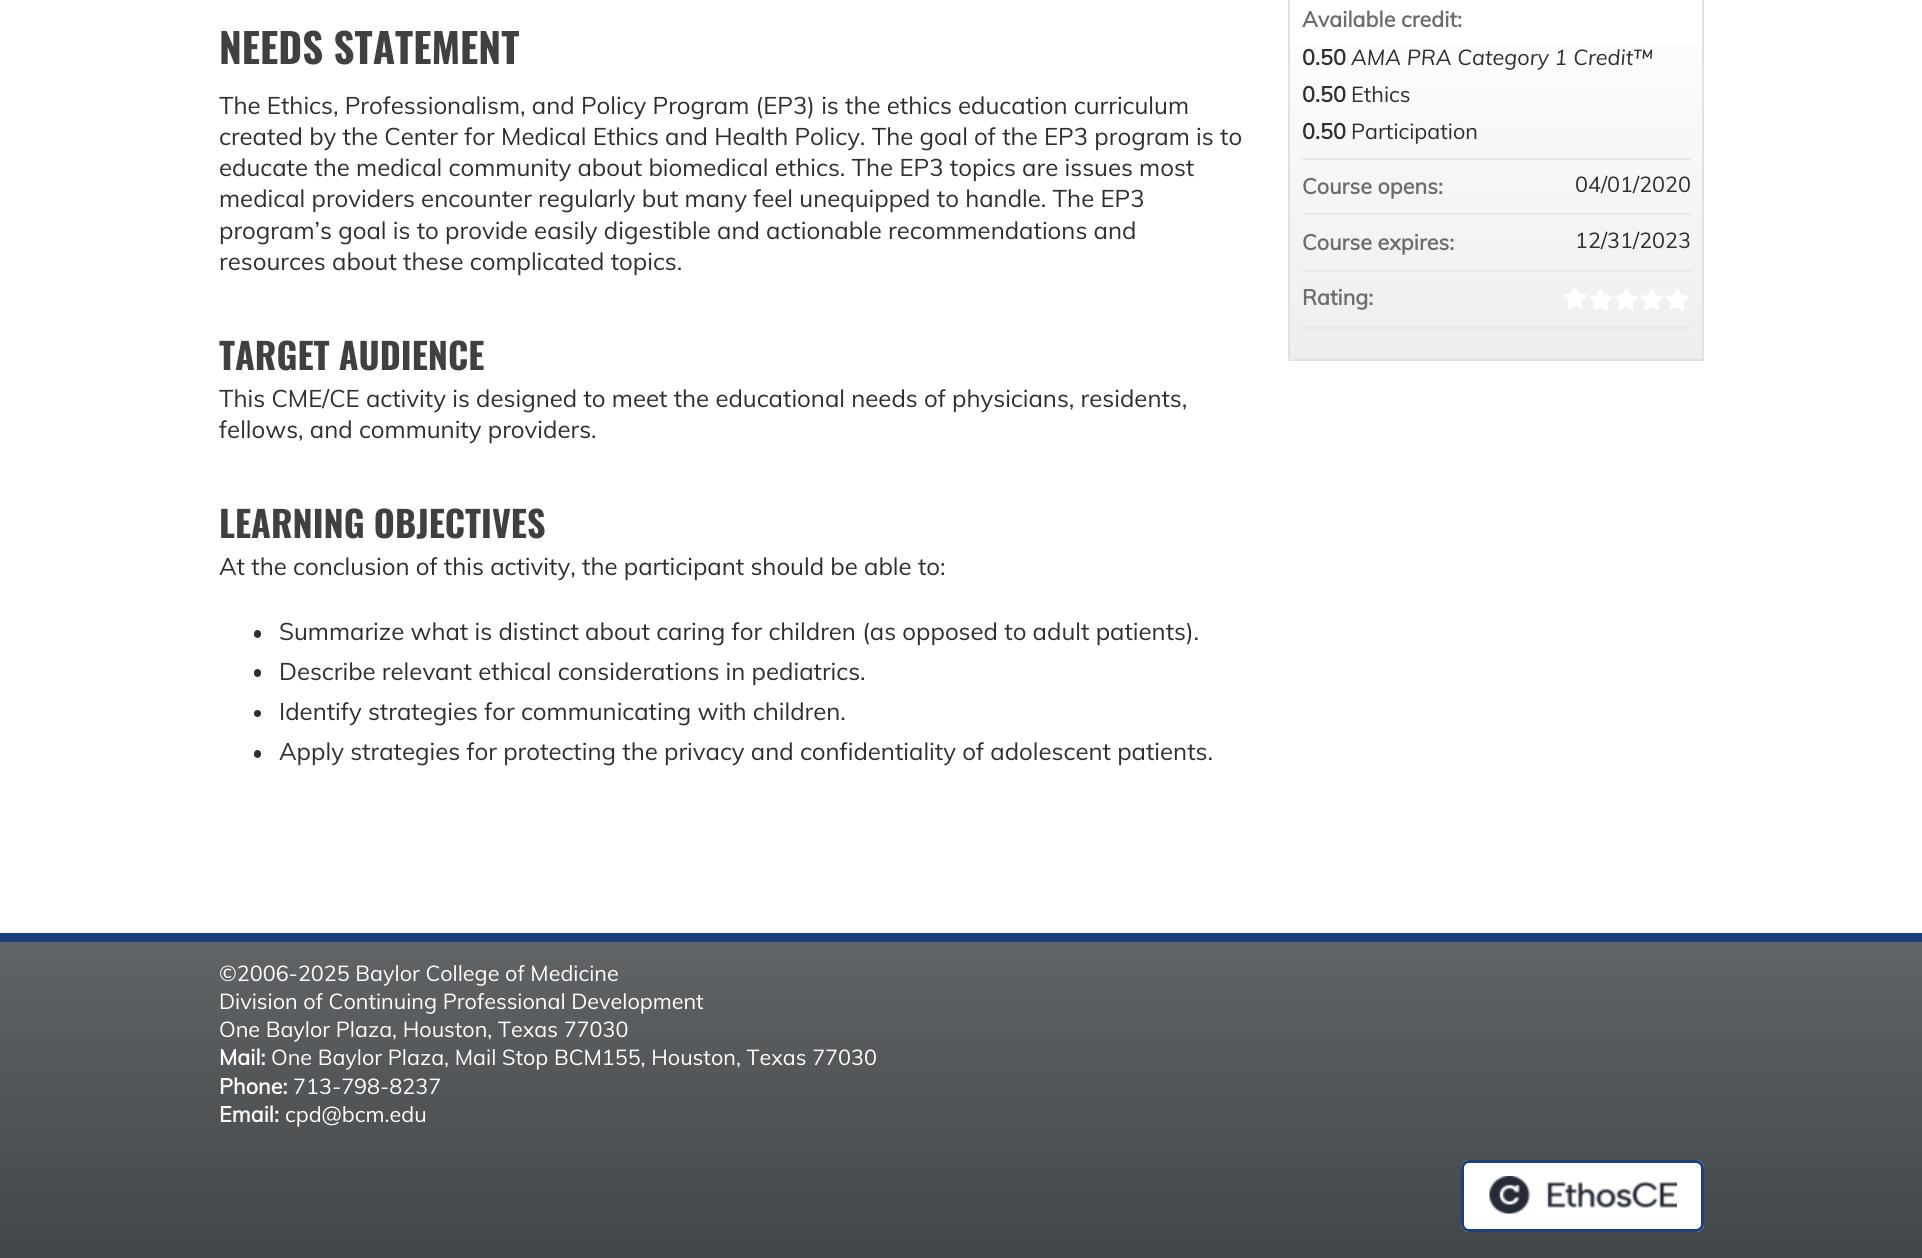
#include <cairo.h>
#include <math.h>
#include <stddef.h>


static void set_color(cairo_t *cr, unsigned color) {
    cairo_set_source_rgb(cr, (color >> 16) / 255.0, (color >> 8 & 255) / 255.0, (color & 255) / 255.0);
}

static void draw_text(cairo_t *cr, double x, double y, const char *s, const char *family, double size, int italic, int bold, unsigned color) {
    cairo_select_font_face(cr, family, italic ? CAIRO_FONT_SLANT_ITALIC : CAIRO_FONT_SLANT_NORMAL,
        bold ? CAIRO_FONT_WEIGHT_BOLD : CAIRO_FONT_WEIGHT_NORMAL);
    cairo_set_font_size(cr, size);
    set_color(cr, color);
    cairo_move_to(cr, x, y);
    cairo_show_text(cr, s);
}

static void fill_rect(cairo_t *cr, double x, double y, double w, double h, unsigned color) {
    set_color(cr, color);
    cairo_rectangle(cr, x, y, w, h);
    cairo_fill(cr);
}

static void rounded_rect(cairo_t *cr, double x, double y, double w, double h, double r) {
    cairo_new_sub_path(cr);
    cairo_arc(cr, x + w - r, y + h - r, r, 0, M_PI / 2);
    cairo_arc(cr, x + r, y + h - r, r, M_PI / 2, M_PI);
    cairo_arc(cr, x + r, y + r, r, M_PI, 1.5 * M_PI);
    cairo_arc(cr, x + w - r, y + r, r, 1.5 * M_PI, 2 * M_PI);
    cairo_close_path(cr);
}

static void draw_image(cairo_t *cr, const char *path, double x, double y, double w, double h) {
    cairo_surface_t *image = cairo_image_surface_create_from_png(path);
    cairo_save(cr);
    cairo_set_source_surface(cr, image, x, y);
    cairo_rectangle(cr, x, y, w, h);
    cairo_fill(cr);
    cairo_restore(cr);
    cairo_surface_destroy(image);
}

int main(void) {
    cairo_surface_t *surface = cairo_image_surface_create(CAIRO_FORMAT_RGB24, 1922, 1258);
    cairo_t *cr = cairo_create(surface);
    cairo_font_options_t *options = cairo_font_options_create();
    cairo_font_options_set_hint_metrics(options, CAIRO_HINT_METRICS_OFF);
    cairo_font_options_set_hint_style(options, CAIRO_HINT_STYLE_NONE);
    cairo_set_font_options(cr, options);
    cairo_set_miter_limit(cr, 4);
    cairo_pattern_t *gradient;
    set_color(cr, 0xFFFFFF);
    cairo_paint(cr);
    draw_text(cr, 219, 64, "NEEDS STATEMENT", "Oswald", 40.75, 0, 1, 0x414041);
    draw_text(cr, 219, 114, "The Ethics, Professionalism, and Policy Program (EP3) is the ethics education curriculum", "Muli", 24, 0, 0, 0x2F2F2F);
    draw_text(cr, 219, 145, "created by the Center for Medical Ethics and Health Policy. The goal of the EP3 program is to", "Muli", 24, 0, 0, 0x2F2F2F);
    draw_text(cr, 219, 176, "educate the medical community about biomedical ethics. The EP3 topics are issues most", "Muli", 24, 0, 0, 0x2F2F2F);
    draw_text(cr, 219, 207, "medical providers encounter regularly but many feel unequipped to handle. The EP3", "Muli", 24, 0, 0, 0x2F2F2F);
    draw_text(cr, 219, 239, "program’s goal is to provide easily digestible and actionable recommendations and", "Muli", 24, 0, 0, 0x2F2F2F);
    draw_text(cr, 219, 270, "resources about these complicated topics.", "Muli", 24, 0, 0, 0x2F2F2F);
    draw_text(cr, 219, 370, "TARGET AUDIENCE", "Oswald", 36, 0, 1, 0x414041);
    draw_text(cr, 219, 407, "This CME/CE activity is designed to meet the educational needs of physicians, residents,", "Muli", 24, 0, 0, 0x2F2F2F);
    draw_text(cr, 219, 438, "fellows, and community providers.", "Muli", 24, 0, 0, 0x2F2F2F);
    draw_text(cr, 219, 538, "LEARNING OBJECTIVES", "Oswald", 36, 0, 1, 0x414041);
    draw_text(cr, 219, 575, "At the conclusion of this activity, the participant should be able to:", "Muli", 24, 0, 0, 0x2F2F2F);
    rounded_rect(cr, 254, 630, 7, 8, 3.5);
    cairo_fill(cr);
    draw_text(cr, 279, 640, "Summarize what is distinct about caring for children (as opposed to adult patients).", "Muli", 24, 0, 0, 0x2F2F2F);
    rounded_rect(cr, 254, 669, 7, 8, 3.5);
    cairo_fill(cr);
    draw_text(cr, 279, 680, "Describe relevant ethical considerations in pediatrics.", "Muli", 24, 0, 0, 0x2F2F2F);
    cairo_new_path(cr);
    cairo_arc(cr, 257.5, 713.5, 3.5, 0, 2 * M_PI);
    cairo_fill(cr);
    draw_text(cr, 279, 720, "Identify strategies for communicating with children.", "Muli", 24, 0, 0, 0x2F2F2F);
    rounded_rect(cr, 254, 750, 7, 8, 3.5);
    cairo_fill(cr);
    draw_text(cr, 279, 760, "Apply strategies for protecting the privacy and confidentiality of adolescent patients.", "Muli", 24, 0, 0, 0x2F2F2F);
    gradient = cairo_pattern_create_linear(1496, 359, 1496, -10);
    cairo_pattern_add_color_stop_rgba(gradient, 0, 0.933, 0.933, 0.933, 1);
    cairo_pattern_add_color_stop_rgba(gradient, 1, 1, 1, 1, 1);
    cairo_set_source(cr, gradient);
    cairo_pattern_destroy(gradient);
    cairo_rectangle(cr, 1290, 44, 413, 315);
    cairo_fill(cr);
    set_color(cr, 0xE1E1E1);
    cairo_new_path(cr);
    cairo_move_to(cr, 1704, -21);
    cairo_line_to(cr, 1704, 360);
    cairo_line_to(cr, 1702, 358);
    cairo_line_to(cr, 1702, -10);
    cairo_close_path(cr);
    cairo_fill(cr);
    fill_rect(cr, 1289, 359, 415, 2, 0xE1E1E1);
    cairo_new_path(cr);
    cairo_move_to(cr, 1288, 360);
    cairo_line_to(cr, 1288, -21);
    cairo_line_to(cr, 1290, -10);
    cairo_line_to(cr, 1290, 358);
    cairo_close_path(cr);
    cairo_fill(cr);
    fill_rect(cr, 1302, 158, 389, 2, 0xE8E8E8);
    draw_text(cr, 1302, 27, "Available credit:", "Muli", 21.6, 0, 1, 0x6D6D6D);
    draw_text(cr, 1302, 65, "0.50", "Muli", 21.6, 0, 1, 0x2F2F2F);
    draw_text(cr, 1351, 65, "AMA PRA Category 1 Credit™", "Muli", 21.6, 1, 0, 0x2F2F2F);
    draw_text(cr, 1302, 102, "0.50", "Muli", 21.6, 0, 1, 0x2F2F2F);
    draw_text(cr, 1351, 102, "Ethics", "Muli", 21.6, 0, 0, 0x2F2F2F);
    draw_text(cr, 1302, 139, "0.50", "Muli", 21.6, 0, 1, 0x2F2F2F);
    draw_text(cr, 1351, 139, "Participation", "Muli", 21.6, 0, 0, 0x2F2F2F);
    fill_rect(cr, 1302, 213, 389, 2, 0xE8E8E8);
    draw_text(cr, 1302, 194, "Course opens:", "Muli", 21.6, 0, 1, 0x6D6D6D);
    draw_text(cr, 1575, 192, "04/01/2020", "Muli", 21.6, 0, 0, 0x2F2F2F);
    fill_rect(cr, 1302, 270, 389, 2, 0xE8E8E8);
    draw_text(cr, 1302, 250, "Course expires:", "Muli", 21.6, 0, 1, 0x6D6D6D);
    draw_text(cr, 1575, 248, "12/31/2023", "Muli", 21.6, 0, 0, 0x2F2F2F);
    fill_rect(cr, 1302, 327, 389, 2, 0xE8E8E8);
    draw_text(cr, 1302, 305, "Rating:", "Muli", 21.6, 0, 1, 0x6D6D6D);
    draw_image(cr, "assets/img1.png", 1564, 288, 23, 21);
    draw_image(cr, "assets/img2.png", 1589, 288, 23, 22);
    draw_image(cr, "assets/img3.png", 1615, 288, 23, 22);
    draw_image(cr, "assets/img2.png", 1640, 288, 23, 22);
    draw_image(cr, "assets/img3.png", 1666, 288, 23, 22);
    gradient = cairo_pattern_create_linear(962, 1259, 962, 942);
    cairo_pattern_add_color_stop_rgba(gradient, 0, 0.263, 0.275, 0.282, 1);
    cairo_pattern_add_color_stop_rgba(gradient, 1, 0.376, 0.392, 0.404, 1);
    cairo_set_source(cr, gradient);
    cairo_pattern_destroy(gradient);
    cairo_rectangle(cr, 0, 942, 1922, 316);
    cairo_fill(cr);
    fill_rect(cr, 0, 933, 1922, 9, 0x1C407F);
    draw_text(cr, 219, 981, "©2006-2025 Baylor College of Medicine", "Muli", 21.6, 0, 0, 0xFFFCFC);
    draw_text(cr, 219, 1009, "Division of Continuing Professional Development", "Muli", 21.6, 0, 0, 0xFFFCFC);
    draw_text(cr, 219, 1037, "One Baylor Plaza, Houston, Texas 77030", "Muli", 21.6, 0, 0, 0xFFFCFC);
    draw_text(cr, 219, 1065, "Mail:", "Muli", 21.6, 0, 1, 0xFFFCFC);
    draw_text(cr, 271, 1065, "One Baylor Plaza, Mail Stop BCM155, Houston, Texas 77030", "Muli", 21.6, 0, 0, 0xFFFCFC);
    draw_text(cr, 219, 1094, "Phone:", "Muli", 21.6, 0, 1, 0xFFFCFC);
    draw_text(cr, 293, 1094, "713-798-8237", "Muli", 21.6, 0, 0, 0xFFFCFC);
    draw_text(cr, 219, 1122, "Email:", "Muli", 21.6, 0, 1, 0xFFFCFC);
    draw_text(cr, 285, 1122, "cpd@bcm.edu", "Muli", 21.6, 0, 0, 0xFFFCFC);
    set_color(cr, 0xFFFFFF);
    rounded_rect(cr, 1461, 1160, 243, 72, 8);
    cairo_fill(cr);
    draw_image(cr, "assets/img4.png", 1489, 1176, 188, 38);
    rounded_rect(cr, 1462.5, 1161.5, 240, 69, 6.5);
    set_color(cr, 0x1C407F);
    cairo_set_line_width(cr, 3);
    cairo_stroke(cr);
    cairo_surface_write_to_png(surface, "output.png");
    cairo_font_options_destroy(options);
    cairo_destroy(cr);
    cairo_surface_destroy(surface);
    return 0;
}
